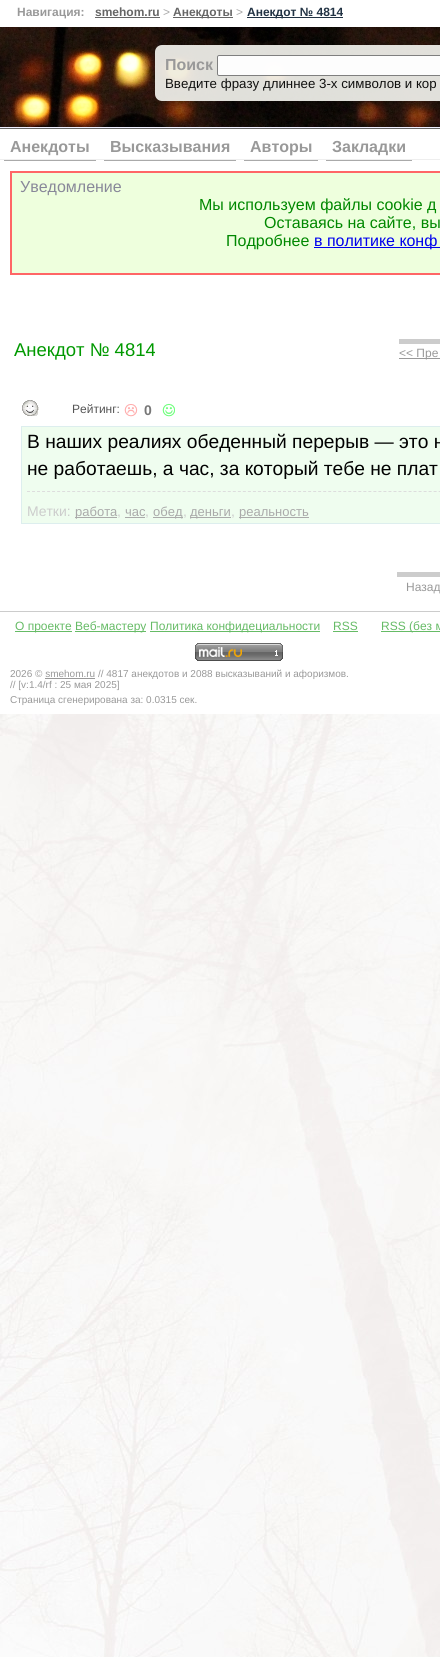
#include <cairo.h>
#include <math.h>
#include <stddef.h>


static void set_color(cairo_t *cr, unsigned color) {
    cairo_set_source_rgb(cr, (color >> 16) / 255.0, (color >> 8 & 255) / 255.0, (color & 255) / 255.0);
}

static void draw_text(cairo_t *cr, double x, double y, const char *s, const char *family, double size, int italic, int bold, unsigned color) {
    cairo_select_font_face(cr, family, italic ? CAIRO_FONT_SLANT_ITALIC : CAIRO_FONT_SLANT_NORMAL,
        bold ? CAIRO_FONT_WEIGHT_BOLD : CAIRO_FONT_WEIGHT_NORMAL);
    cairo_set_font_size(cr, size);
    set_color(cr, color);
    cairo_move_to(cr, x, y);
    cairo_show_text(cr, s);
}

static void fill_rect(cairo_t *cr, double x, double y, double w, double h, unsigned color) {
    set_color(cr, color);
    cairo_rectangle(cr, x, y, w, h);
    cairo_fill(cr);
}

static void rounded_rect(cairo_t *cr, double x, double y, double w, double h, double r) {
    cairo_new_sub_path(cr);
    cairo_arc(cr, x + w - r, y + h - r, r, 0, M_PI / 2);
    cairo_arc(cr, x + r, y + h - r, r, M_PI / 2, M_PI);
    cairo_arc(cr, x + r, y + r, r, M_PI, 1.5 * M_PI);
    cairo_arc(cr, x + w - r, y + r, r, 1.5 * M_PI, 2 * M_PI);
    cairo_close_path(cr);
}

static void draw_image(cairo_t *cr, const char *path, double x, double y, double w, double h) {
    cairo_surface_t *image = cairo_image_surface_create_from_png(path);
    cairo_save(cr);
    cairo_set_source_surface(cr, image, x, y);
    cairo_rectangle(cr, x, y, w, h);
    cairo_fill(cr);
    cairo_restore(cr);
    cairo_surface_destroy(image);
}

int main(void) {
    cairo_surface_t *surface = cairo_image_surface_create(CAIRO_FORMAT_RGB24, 440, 1657);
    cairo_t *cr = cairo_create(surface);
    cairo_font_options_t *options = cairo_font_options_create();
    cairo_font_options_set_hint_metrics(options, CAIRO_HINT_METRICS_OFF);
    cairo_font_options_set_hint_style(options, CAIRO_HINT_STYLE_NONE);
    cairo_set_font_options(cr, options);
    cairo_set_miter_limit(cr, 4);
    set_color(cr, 0xFFFFFF);
    cairo_paint(cr);
    draw_image(cr, "assets/img1.png", 0, 714, 440, 943);
    draw_text(cr, 17, 16, "Навигация:", "Liberation Sans", 12, 0, 1, 0x999999);
    draw_text(cr, 95, 16, "smehom.ru", "Liberation Sans", 12, 0, 1, 0x666666);
    fill_rect(cr, 95, 17, 65, 1, 0x666666);
    draw_text(cr, 163, 16, ">", "Liberation Sans", 12, 0, 0, 0xAAAAAA);
    fill_rect(cr, 173, 17, 60, 1, 0x666666);
    draw_text(cr, 173, 16, "Анекдоты", "Liberation Sans", 12, 0, 1, 0x666666);
    draw_text(cr, 236, 16, ">", "Liberation Sans", 12, 0, 0, 0xAAAAAA);
    fill_rect(cr, 247, 17, 96, 1, 0x223344);
    draw_text(cr, 247, 16, "Анекдот № 4814", "Liberation Sans", 12, 0, 1, 0x223344);
    fill_rect(cr, 0, 127, 440, 1, 0xEFEFFF);
    draw_image(cr, "assets/img2.png", 0, 27, 440, 100);
    fill_rect(cr, 0, 128, 440, 1, 0x666666);
    cairo_set_source_rgba(cr, 0.937, 0.937, 0.918, 0.93);
    rounded_rect(cr, 155, 45, 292, 56, 7);
    cairo_fill(cr);
    draw_text(cr, 165, 70, "Поиск", "Liberation Sans", 16, 0, 1, 0x999999);
    cairo_set_source_rgba(cr, 1, 1, 1, 0.93);
    rounded_rect(cr, 217, 55, 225, 21, 2);
    cairo_fill(cr);
    rounded_rect(cr, 217.5, 55.5, 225, 20, 1.5);
    cairo_set_source_rgba(cr, 0.463, 0.463, 0.463, 0.93);
    cairo_set_line_width(cr, 1);
    cairo_stroke(cr);
    draw_text(cr, 165, 88, "Введите фразу длиннее 3-х символов и кор", "Liberation Sans", 13.3, 0, 0, 0x10100F);
    fill_rect(cr, 0, 159, 440, 1, 0xEEEEEE);
    fill_rect(cr, 4, 160, 92, 1, 0xAAAAAA);
    draw_text(cr, 10, 152, "Анекдоты", "Liberation Sans", 16, 0, 1, 0x999999);
    fill_rect(cr, 104, 160, 132, 1, 0xAAAAAA);
    draw_text(cr, 110, 152, "Высказывания", "Liberation Sans", 16, 0, 1, 0x999999);
    fill_rect(cr, 244, 160, 74, 1, 0xAAAAAA);
    draw_text(cr, 250, 152, "Авторы", "Liberation Sans", 16, 0, 1, 0x999999);
    fill_rect(cr, 326, 160, 86, 1, 0xAAAAAA);
    draw_text(cr, 332, 152, "Закладки", "Liberation Sans", 16, 0, 1, 0x999999);
    set_color(cr, 0xEEFFDD);
    cairo_rectangle(cr, 11, 172, 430, 102);
    cairo_fill_preserve(cr);
    set_color(cr, 0xFF6666);
    cairo_set_line_width(cr, 2);
    cairo_stroke(cr);
    draw_text(cr, 20, 192, "Уведомление", "Liberation Sans", 16, 0, 0, 0x888899);
    draw_text(cr, 199, 210, "Мы используем файлы cookie д", "Liberation Sans", 16, 0, 0, 0x008800);
    draw_text(cr, 264, 228, "Оставаясь на сайте, вы", "Liberation Sans", 16, 0, 0, 0x008800);
    draw_text(cr, 226, 246, "Подробнее", "Liberation Sans", 16, 0, 0, 0x008800);
    fill_rect(cr, 314, 247, 126, 1, 0x0000EE);
    draw_text(cr, 314, 246, "в политике конф", "Liberation Sans", 16, 0, 0, 0x0000EE);
    draw_text(cr, 14, 356, "Анекдот № 4814", "Liberation Sans", 18.5, 0, 0, 0x009900);
    fill_rect(cr, 399, 339, 41, 5, 0xCCCCCC);
    fill_rect(cr, 399, 358, 41, 1, 0x999999);
    draw_text(cr, 399, 357, "<< Пре", "Liberation Sans", 12, 0, 0, 0x999999);
    draw_image(cr, "assets/img3.png", 22, 400, 17, 16);
    draw_text(cr, 72, 413, "Рейтинг:", "Liberation Sans", 12, 0, 0, 0x555555);
    draw_image(cr, "assets/img4.png", 124, 404, 14, 13);
    draw_text(cr, 144, 415, "0", "Liberation Sans", 14, 0, 1, 0x777777);
    draw_image(cr, "assets/img5.png", 162, 403, 13, 14);
    set_color(cr, 0xEFFDEF);
    cairo_rectangle(cr, 21.5, 426.5, 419, 97);
    cairo_fill_preserve(cr);
    set_color(cr, 0xDDEEEE);
    cairo_set_line_width(cr, 1);
    cairo_stroke(cr);
    draw_text(cr, 27, 448, "В наших реалиях обеденный перерыв — это н", "Liberation Sans", 19.2, 0, 0, 0x000000);
    draw_text(cr, 27, 475, "не работаешь, а час, за который тебе не плат", "Liberation Sans", 19.2, 0, 0, 0x000000);
    cairo_new_path(cr);
    cairo_move_to(cr, 27, 491.5);
    cairo_line_to(cr, 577, 491.5);
    set_color(cr, 0xDDDDDD);
    cairo_set_dash(cr, (double[]){3, 2.02}, 2, 0);
    cairo_stroke(cr);
    draw_text(cr, 27, 516, "Метки:", "Liberation Sans", 14, 0, 0, 0xCCCCCC);
    fill_rect(cr, 75, 517, 42, 1, 0xAAAAAA);
    draw_text(cr, 75, 516, "работа", "Liberation Sans", 13, 0, 0, 0xAAAAAA);
    draw_text(cr, 117, 516, ",", "Liberation Sans", 14, 0, 0, 0xCCCCCC);
    draw_text(cr, 125, 516, "час", "Liberation Sans", 13, 0, 0, 0xAAAAAA);
    fill_rect(cr, 125, 517, 20, 1, 0xAAAAAA);
    draw_text(cr, 145, 516, ",", "Liberation Sans", 14, 0, 0, 0xCCCCCC);
    fill_rect(cr, 153, 517, 30, 1, 0xAAAAAA);
    draw_text(cr, 153, 516, "обед", "Liberation Sans", 13, 0, 0, 0xAAAAAA);
    draw_text(cr, 183, 516, ",", "Liberation Sans", 14, 0, 0, 0xCCCCCC);
    fill_rect(cr, 190, 517, 41, 1, 0xAAAAAA);
    draw_text(cr, 190, 516, "деньги", "Liberation Sans", 13, 0, 0, 0xAAAAAA);
    draw_text(cr, 231, 516, ",", "Liberation Sans", 14, 0, 0, 0xCCCCCC);
    fill_rect(cr, 239, 517, 70, 1, 0xAAAAAA);
    draw_text(cr, 239, 516, "реальность", "Liberation Sans", 13, 0, 0, 0xAAAAAA);
    fill_rect(cr, 397, 572, 43, 5, 0xCCCCCC);
    draw_text(cr, 406, 591, "Назад", "Liberation Sans", 12, 0, 0, 0x999999);
    fill_rect(cr, 0, 611, 440, 1, 0xCCCCCC);
    fill_rect(cr, 15, 631, 57, 1, 0x66BB66);
    draw_text(cr, 15, 630, "О проекте", "Liberation Sans", 12, 0, 0, 0x66BB66);
    fill_rect(cr, 75, 631, 71, 1, 0x66BB66);
    draw_text(cr, 75, 630, "Веб-мастеру", "Liberation Sans", 12, 0, 0, 0x66BB66);
    fill_rect(cr, 150, 631, 170, 1, 0x66BB66);
    draw_text(cr, 150, 630, "Политика конфидециальности", "Liberation Sans", 12, 0, 0, 0x66BB66);
    draw_text(cr, 333, 630, "RSS", "Liberation Sans", 12, 0, 0, 0x66BB66);
    fill_rect(cr, 333, 631, 25, 1, 0x66BB66);
    fill_rect(cr, 381, 631, 59, 1, 0x66BB66);
    draw_text(cr, 381, 630, "RSS (без м", "Liberation Sans", 12, 0, 0, 0x66BB66);
    draw_image(cr, "assets/img6.png", 195, 643, 88, 18);
    draw_text(cr, 10, 677, "2026 © smehom.ru // 4817 анекдотов и 2088 высказываний и афоризмов.", "Liberation Sans", 10, 0, 0, 0x999999);
    fill_rect(cr, 45, 678, 50, 1, 0x999999);
    draw_text(cr, 10, 688, "// [v:1.4/rf : 25 мая 2025]", "Liberation Sans", 10, 0, 0, 0x999999);
    draw_text(cr, 10, 703, "Страница сгенерирована за: 0.0315 сек.", "Liberation Sans", 10, 0, 0, 0x999999);
    cairo_surface_write_to_png(surface, "output.png");
    cairo_font_options_destroy(options);
    cairo_destroy(cr);
    cairo_surface_destroy(surface);
    return 0;
}
